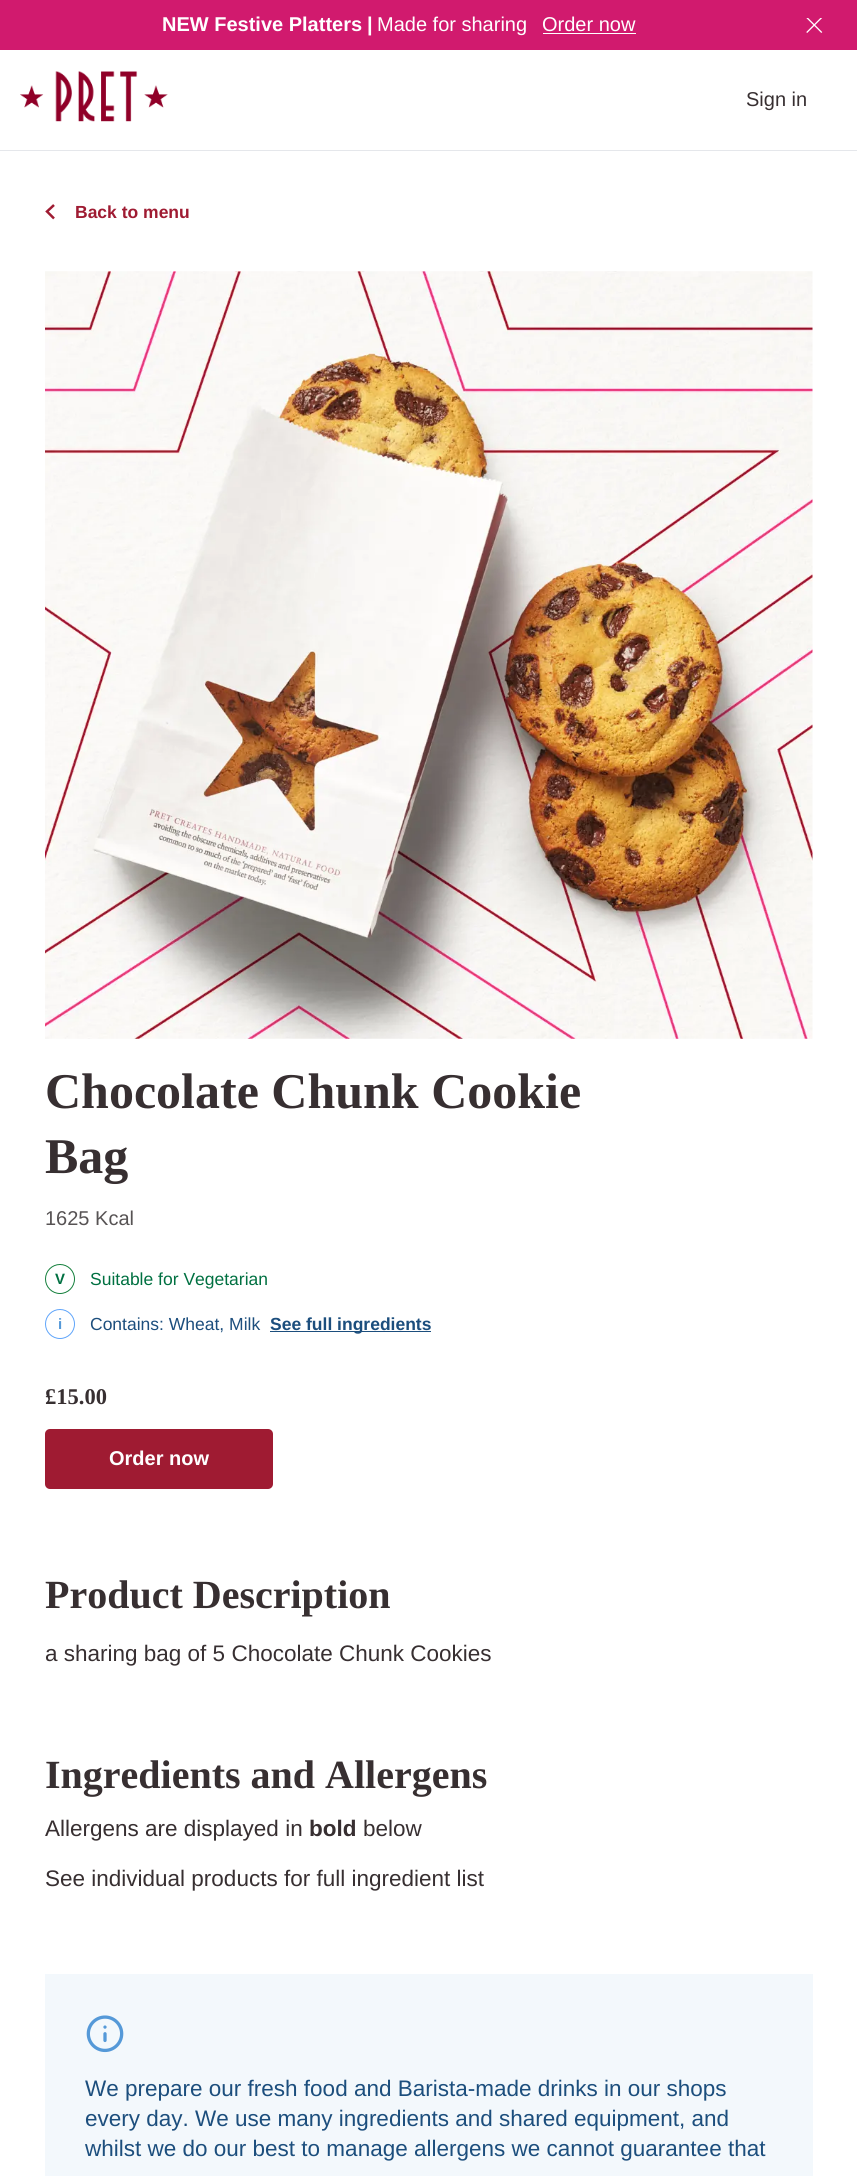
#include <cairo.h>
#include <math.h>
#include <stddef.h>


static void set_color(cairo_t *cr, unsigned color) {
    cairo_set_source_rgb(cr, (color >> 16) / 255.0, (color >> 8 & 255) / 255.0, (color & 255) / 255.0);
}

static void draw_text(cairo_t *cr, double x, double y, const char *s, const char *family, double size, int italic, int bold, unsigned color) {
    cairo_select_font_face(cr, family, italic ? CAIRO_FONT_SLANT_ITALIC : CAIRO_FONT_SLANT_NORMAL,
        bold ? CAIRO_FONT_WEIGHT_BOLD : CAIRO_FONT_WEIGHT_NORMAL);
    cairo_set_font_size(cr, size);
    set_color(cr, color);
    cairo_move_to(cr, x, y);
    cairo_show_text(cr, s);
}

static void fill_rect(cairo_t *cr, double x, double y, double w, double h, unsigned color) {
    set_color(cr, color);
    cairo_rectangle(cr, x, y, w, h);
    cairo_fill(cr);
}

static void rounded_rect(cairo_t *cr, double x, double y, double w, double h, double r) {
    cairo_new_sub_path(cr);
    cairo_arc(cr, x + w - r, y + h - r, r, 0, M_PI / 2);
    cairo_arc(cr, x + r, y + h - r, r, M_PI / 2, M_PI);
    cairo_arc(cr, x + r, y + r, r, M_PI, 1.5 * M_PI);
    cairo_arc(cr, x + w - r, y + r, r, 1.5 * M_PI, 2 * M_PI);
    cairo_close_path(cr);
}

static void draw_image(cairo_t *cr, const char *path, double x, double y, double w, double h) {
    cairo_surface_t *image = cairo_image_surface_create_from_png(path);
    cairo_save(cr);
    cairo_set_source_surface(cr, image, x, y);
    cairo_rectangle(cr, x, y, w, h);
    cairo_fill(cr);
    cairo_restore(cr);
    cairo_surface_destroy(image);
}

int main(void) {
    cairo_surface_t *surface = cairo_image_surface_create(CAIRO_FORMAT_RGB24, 857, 2176);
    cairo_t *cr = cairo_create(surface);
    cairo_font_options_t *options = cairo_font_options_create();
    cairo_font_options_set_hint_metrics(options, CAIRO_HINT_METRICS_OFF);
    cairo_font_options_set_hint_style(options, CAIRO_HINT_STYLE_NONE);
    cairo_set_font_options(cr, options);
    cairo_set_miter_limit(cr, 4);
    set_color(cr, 0xFFFFFF);
    cairo_paint(cr);
    fill_rect(cr, 0, 0, 857, 50, 0xD11A6E);
    draw_text(cr, 162, 31, "NEW Festive Platters", "Liberation Sans", 20, 0, 1, 0xFFFFFF);
    draw_text(cr, 367, 31, "|", "Liberation Sans", 20, 0, 1, 0xFFFFFF);
    draw_text(cr, 377, 31, "Made for sharing", "Liberation Sans", 20, 0, 0, 0xFFFFFF);
    draw_text(cr, 542, 31, "Order now", "Liberation Sans", 20, 0, 0, 0xFFFFFF);
    fill_rect(cr, 543, 33, 93, 1, 0xFFFFFF);
    draw_image(cr, "assets/img1.png", 806, 18, 17, 15);
    fill_rect(cr, 0, 150, 857, 1, 0xE5E7EB);
    draw_image(cr, "assets/img2.png", 20, 71, 148, 51);
    draw_text(cr, 746, 106, "Sign in", "Liberation Sans", 20, 0, 0, 0x372F31);
    cairo_new_path(cr);
    cairo_move_to(cr, 54, 205);
    cairo_line_to(cr, 47, 211.5);
    cairo_line_to(cr, 54, 218.5);
    set_color(cr, 0x9F1B32);
    cairo_set_line_width(cr, 2.5);
    cairo_stroke(cr);
    draw_text(cr, 75, 218, "Back to menu", "Liberation Sans", 17.5, 0, 1, 0x9F1B32);
    draw_image(cr, "assets/img3.png", 45, 271, 768, 768);
    draw_text(cr, 45, 1108, "Chocolate Chunk Cookie", "Liberation Serif", 50, 0, 1, 0x372F31);
    draw_text(cr, 45, 1173, "Bag", "Liberation Serif", 50, 0, 1, 0x372F31);
    draw_text(cr, 45, 1225, "1625 Kcal", "Liberation Sans", 20, 0, 0, 0x575354);
    cairo_new_path(cr);
    cairo_arc(cr, 60, 1279, 14.5, 0, 2 * M_PI);
    set_color(cr, 0x15803D);
    cairo_set_line_width(cr, 1);
    cairo_stroke(cr);
    draw_text(cr, 55, 1284, "V", "Liberation Sans", 15, 0, 1, 0x007041);
    draw_text(cr, 90, 1285, "Suitable for Vegetarian", "Liberation Sans", 17.5, 0, 0, 0x007041);
    cairo_new_path(cr);
    cairo_arc(cr, 60, 1324, 14.5, 0, 2 * M_PI);
    set_color(cr, 0x60A5FA);
    cairo_stroke(cr);
    draw_text(cr, 58, 1329, "i", "Liberation Sans", 15, 0, 1, 0x5599D8);
    draw_text(cr, 90, 1330, "Contains: Wheat, Milk", "Liberation Sans", 17.5, 0, 0, 0x1C4E7D);
    fill_rect(cr, 270, 1331, 161, 1, 0x1C4E7D);
    draw_text(cr, 270, 1330, "See full ingredients", "Liberation Sans", 17.5, 0, 1, 0x1C4E7D);
    draw_text(cr, 45, 1404, "£15.00", "Liberation Serif", 22.5, 0, 1, 0x372F31);
    set_color(cr, 0x9F1B32);
    rounded_rect(cr, 45, 1429, 228, 60, 5);
    cairo_fill(cr);
    draw_text(cr, 109, 1465, "Order now", "Liberation Sans", 20, 0, 1, 0xFFFFFF);
    draw_text(cr, 45, 1608, "Product Description", "Liberation Serif", 40, 0, 1, 0x372F31);
    draw_text(cr, 45, 1661, "a sharing bag of 5 Chocolate Chunk Cookies", "Liberation Sans", 22.5, 0, 0, 0x372F31);
    draw_text(cr, 45, 1788, "Ingredients and Allergens", "Liberation Serif", 40, 0, 1, 0x372F31);
    draw_text(cr, 45, 1836, "Allergens are displayed in", "Liberation Sans", 22.5, 0, 0, 0x372F31);
    draw_text(cr, 309, 1836, "bold", "Liberation Sans", 22.5, 0, 1, 0x372F31);
    draw_text(cr, 363, 1836, "below", "Liberation Sans", 22.5, 0, 0, 0x372F31);
    draw_text(cr, 45, 1886, "See individual products for full ingredient list", "Liberation Sans", 22.5, 0, 0, 0x372F31);
    fill_rect(cr, 45, 1974, 768, 202, 0xF3F8FC);
    draw_image(cr, "assets/img4.png", 86, 2015, 38, 38);
    draw_text(cr, 85, 2096, "We prepare our fresh food and Barista-made drinks in our shops", "Liberation Sans", 22.5, 0, 0, 0x1C4E7D);
    draw_text(cr, 85, 2126, "every day. We use many ingredients and shared equipment, and", "Liberation Sans", 22.5, 0, 0, 0x1C4E7D);
    draw_text(cr, 85, 2156, "whilst we do our best to manage allergens we cannot guarantee that", "Liberation Sans", 22.5, 0, 0, 0x1C4E7D);
    cairo_surface_write_to_png(surface, "output.png");
    cairo_font_options_destroy(options);
    cairo_destroy(cr);
    cairo_surface_destroy(surface);
    return 0;
}
